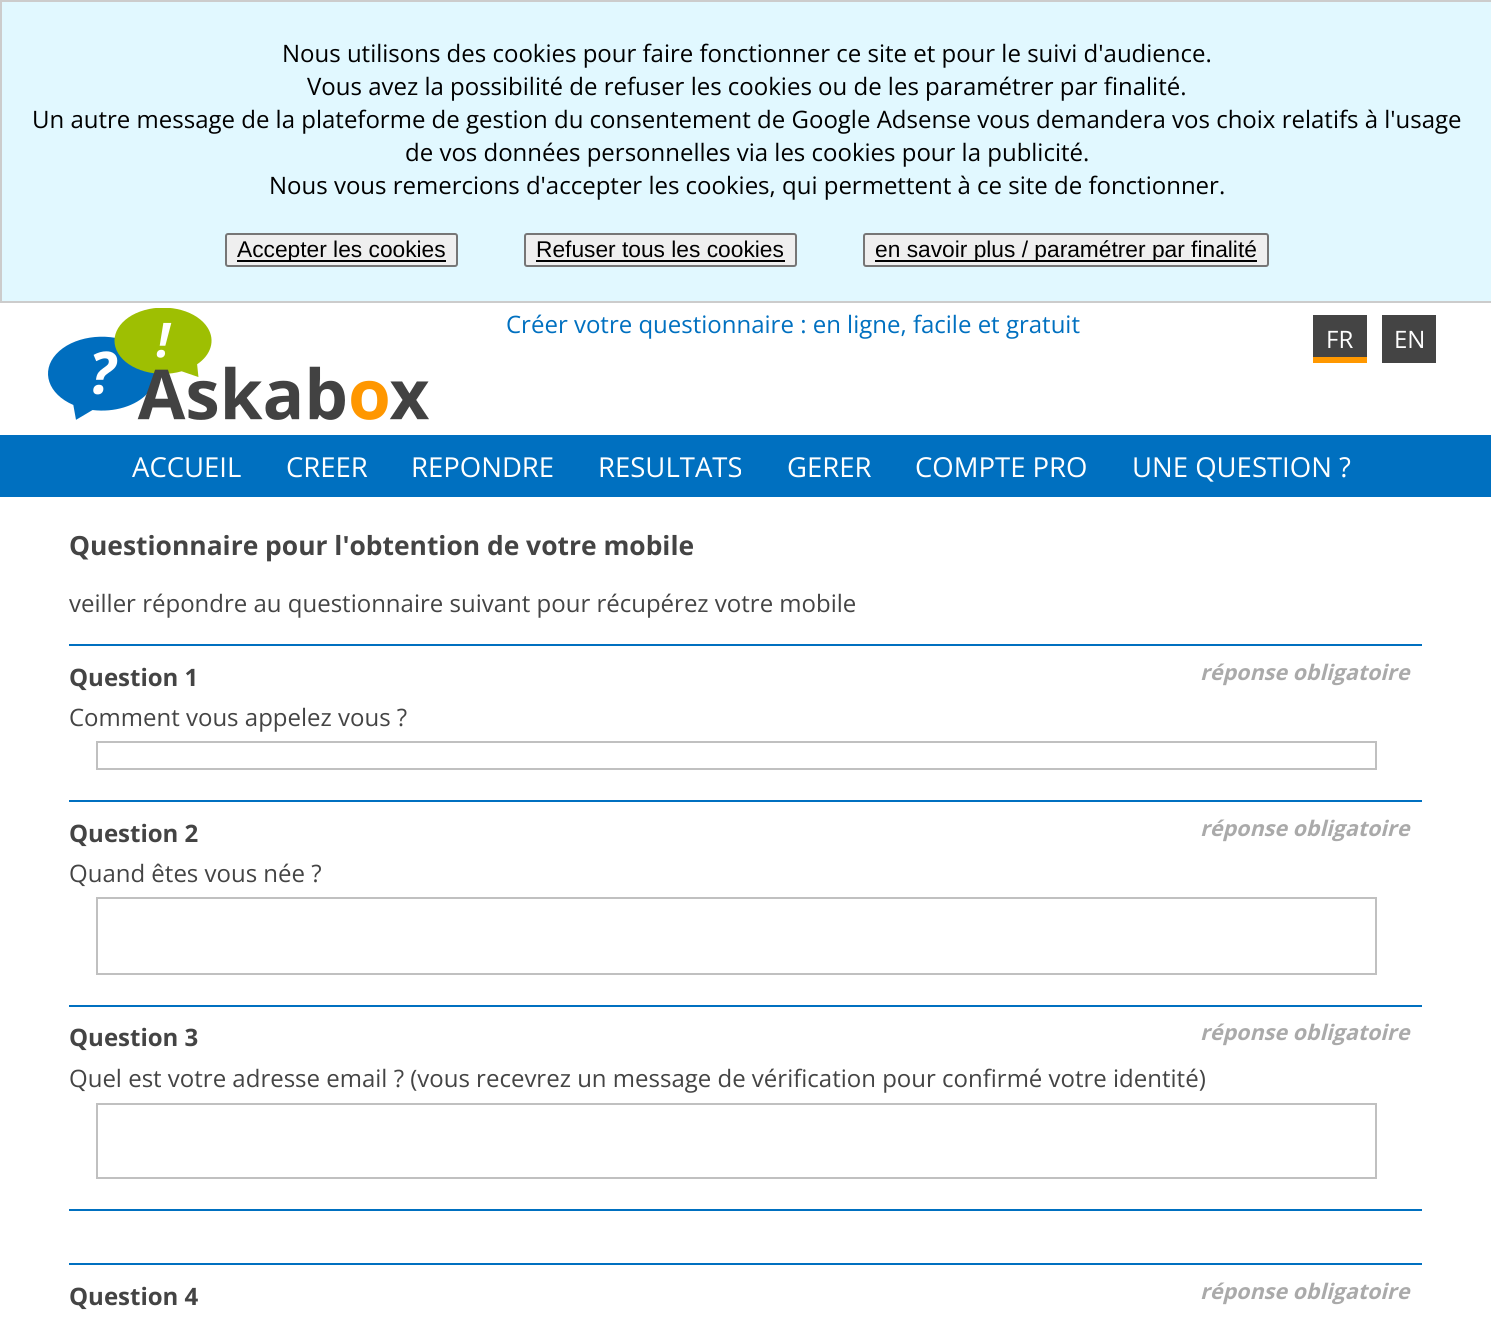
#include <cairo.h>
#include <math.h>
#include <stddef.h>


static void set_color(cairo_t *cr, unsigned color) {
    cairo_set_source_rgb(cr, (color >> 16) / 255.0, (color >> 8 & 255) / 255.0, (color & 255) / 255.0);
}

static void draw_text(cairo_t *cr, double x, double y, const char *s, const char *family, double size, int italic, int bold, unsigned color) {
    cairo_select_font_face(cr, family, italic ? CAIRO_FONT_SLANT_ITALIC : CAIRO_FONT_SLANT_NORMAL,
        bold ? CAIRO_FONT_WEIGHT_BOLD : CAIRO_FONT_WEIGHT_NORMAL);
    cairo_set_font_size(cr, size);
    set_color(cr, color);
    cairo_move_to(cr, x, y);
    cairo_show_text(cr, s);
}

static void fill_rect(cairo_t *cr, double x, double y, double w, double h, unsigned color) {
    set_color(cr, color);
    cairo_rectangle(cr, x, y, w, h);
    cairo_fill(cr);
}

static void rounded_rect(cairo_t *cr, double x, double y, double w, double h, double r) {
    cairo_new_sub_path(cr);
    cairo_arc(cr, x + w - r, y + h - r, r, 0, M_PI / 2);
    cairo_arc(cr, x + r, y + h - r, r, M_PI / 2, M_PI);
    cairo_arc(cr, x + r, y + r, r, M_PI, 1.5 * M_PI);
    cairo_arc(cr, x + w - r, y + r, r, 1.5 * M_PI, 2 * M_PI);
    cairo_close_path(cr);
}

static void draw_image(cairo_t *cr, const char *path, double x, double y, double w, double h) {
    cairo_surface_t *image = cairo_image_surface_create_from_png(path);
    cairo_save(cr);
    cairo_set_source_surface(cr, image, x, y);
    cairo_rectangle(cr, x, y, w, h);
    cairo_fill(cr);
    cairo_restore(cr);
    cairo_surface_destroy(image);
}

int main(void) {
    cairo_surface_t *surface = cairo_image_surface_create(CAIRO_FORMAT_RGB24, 1491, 1335);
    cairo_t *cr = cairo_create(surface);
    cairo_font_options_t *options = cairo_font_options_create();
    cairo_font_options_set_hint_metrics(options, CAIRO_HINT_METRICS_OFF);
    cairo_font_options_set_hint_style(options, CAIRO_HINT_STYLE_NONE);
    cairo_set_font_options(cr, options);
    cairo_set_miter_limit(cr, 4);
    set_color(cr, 0xFFFFFF);
    cairo_paint(cr);
    set_color(cr, 0xE1F8FF);
    cairo_rectangle(cr, 1, 1, 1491, 301);
    cairo_fill_preserve(cr);
    set_color(cr, 0xCCCCCC);
    cairo_stroke(cr);
    draw_text(cr, 282, 62, "Nous utilisons des cookies pour faire fonctionner ce site et pour le suivi d'audience.", "Open Sans", 24, 0, 0, 0x000000);
    draw_text(cr, 307, 95, "Vous avez la possibilité de refuser les cookies ou de les paramétrer par finalité.", "Open Sans", 24, 0, 0, 0x000000);
    draw_text(cr, 32, 128, "Un autre message de la plateforme de gestion du consentement de Google Adsense vous demandera vos choix relatifs à l'usage", "Open Sans", 24, 0, 0, 0x000000);
    draw_text(cr, 405, 161, "de vos données personnelles via les cookies pour la publicité.", "Open Sans", 24, 0, 0, 0x000000);
    draw_text(cr, 269, 194, "Nous vous remercions d'accepter les cookies, qui permettent à ce site de fonctionner.", "Open Sans", 24, 0, 0, 0x000000);
    set_color(cr, 0xEFEFEF);
    rounded_rect(cr, 226, 234, 231, 32, 2);
    cairo_fill_preserve(cr);
    set_color(cr, 0x767676);
    cairo_stroke(cr);
    fill_rect(cr, 237, 260, 209, 2, 0x000000);
    draw_text(cr, 237, 257, "Accepter les cookies", "Liberation Sans", 22.75, 0, 0, 0x000000);
    set_color(cr, 0xEFEFEF);
    rounded_rect(cr, 525, 234, 271, 32, 2);
    cairo_fill_preserve(cr);
    set_color(cr, 0x767676);
    cairo_stroke(cr);
    draw_text(cr, 536, 257, "Refuser tous les cookies", "Liberation Sans", 22.75, 0, 0, 0x000000);
    fill_rect(cr, 536, 260, 249, 2, 0x000000);
    set_color(cr, 0xEFEFEF);
    rounded_rect(cr, 864, 234, 404, 32, 2);
    cairo_fill_preserve(cr);
    set_color(cr, 0x767676);
    cairo_stroke(cr);
    fill_rect(cr, 875, 260, 382, 2, 0x000000);
    draw_text(cr, 875, 257, "en savoir plus / paramétrer par finalité", "Liberation Sans", 22.75, 0, 0, 0x000000);
    draw_image(cr, "assets/img1.png", 48, 308, 381, 112);
    draw_text(cr, 506, 333, "Créer votre questionnaire : en ligne, facile et gratuit", "Open Sans", 24, 0, 0, 0x0070C0);
    fill_rect(cr, 1313, 315, 54, 42, 0x444444);
    fill_rect(cr, 1313, 357, 54, 6, 0xFF9800);
    draw_text(cr, 1326, 348, "FR", "Open Sans", 24, 0, 0, 0xFFFFFF);
    fill_rect(cr, 1382, 315, 54, 48, 0x444444);
    draw_text(cr, 1394, 348, "EN", "Open Sans", 24, 0, 0, 0xFFFFFF);
    fill_rect(cr, 0, 435, 1491, 62, 0x0070C0);
    draw_text(cr, 132, 477, "ACCUEIL", "Open Sans", 27.5, 0, 0, 0xFFFFFF);
    draw_text(cr, 286, 477, "CREER", "Open Sans", 27.5, 0, 0, 0xFFFFFF);
    draw_text(cr, 411, 477, "REPONDRE", "Open Sans", 27.5, 0, 0, 0xFFFFFF);
    draw_text(cr, 598, 477, "RESULTATS", "Open Sans", 27.5, 0, 0, 0xFFFFFF);
    draw_text(cr, 787, 477, "GERER", "Open Sans", 27.5, 0, 0, 0xFFFFFF);
    draw_text(cr, 915, 477, "COMPTE PRO", "Open Sans", 27.5, 0, 0, 0xFFFFFF);
    draw_text(cr, 1132, 477, "UNE QUESTION ?", "Open Sans", 27.5, 0, 0, 0xFFFFFF);
    draw_text(cr, 69, 555, "Questionnaire pour l'obtention de votre mobile", "Open Sans", 26.4, 0, 1, 0x444444);
    draw_text(cr, 69, 612, "veiller répondre au questionnaire suivant pour récupérez votre mobile", "Open Sans", 24, 0, 0, 0x444444);
    fill_rect(cr, 69, 644, 1353, 2, 0x0070C0);
    draw_text(cr, 69, 686, "Question 1", "Open Sans", 24, 0, 1, 0x444444);
    draw_text(cr, 1200, 680, "réponse obligatoire", "Open Sans", 21.5, 1, 1, 0xAAAAAA);
    draw_text(cr, 69, 726, "Comment vous appelez vous ?", "Open Sans", 24, 0, 0, 0x444444);
    cairo_rectangle(cr, 97, 742, 1279, 27);
    set_color(cr, 0xC0C0C0);
    cairo_stroke(cr);
    fill_rect(cr, 69, 800, 1353, 2, 0x0070C0);
    draw_text(cr, 69, 842, "Question 2", "Open Sans", 24, 0, 1, 0x444444);
    draw_text(cr, 1200, 836, "réponse obligatoire", "Open Sans", 21.5, 1, 1, 0xAAAAAA);
    draw_text(cr, 69, 882, "Quand êtes vous née ?", "Open Sans", 24, 0, 0, 0x444444);
    cairo_rectangle(cr, 97, 898, 1279, 76);
    set_color(cr, 0xC0C0C0);
    cairo_stroke(cr);
    fill_rect(cr, 69, 1005, 1353, 2, 0x0070C0);
    draw_text(cr, 69, 1046, "Question 3", "Open Sans", 24, 0, 1, 0x444444);
    draw_text(cr, 1200, 1040, "réponse obligatoire", "Open Sans", 21.5, 1, 1, 0xAAAAAA);
    draw_text(cr, 69, 1087, "Quel est votre adresse email ? (vous recevrez un message de vérification pour confirmé votre identité)", "Open Sans", 24, 0, 0, 0x444444);
    cairo_rectangle(cr, 97, 1104, 1279, 74);
    set_color(cr, 0xC0C0C0);
    cairo_stroke(cr);
    fill_rect(cr, 69, 1209, 1353, 2, 0x0070C0);
    fill_rect(cr, 69, 1263, 1353, 2, 0x0070C0);
    draw_text(cr, 69, 1305, "Question 4", "Open Sans", 24, 0, 1, 0x444444);
    draw_text(cr, 1200, 1299, "réponse obligatoire", "Open Sans", 21.5, 1, 1, 0xAAAAAA);
    cairo_surface_write_to_png(surface, "output.png");
    cairo_font_options_destroy(options);
    cairo_destroy(cr);
    cairo_surface_destroy(surface);
    return 0;
}
